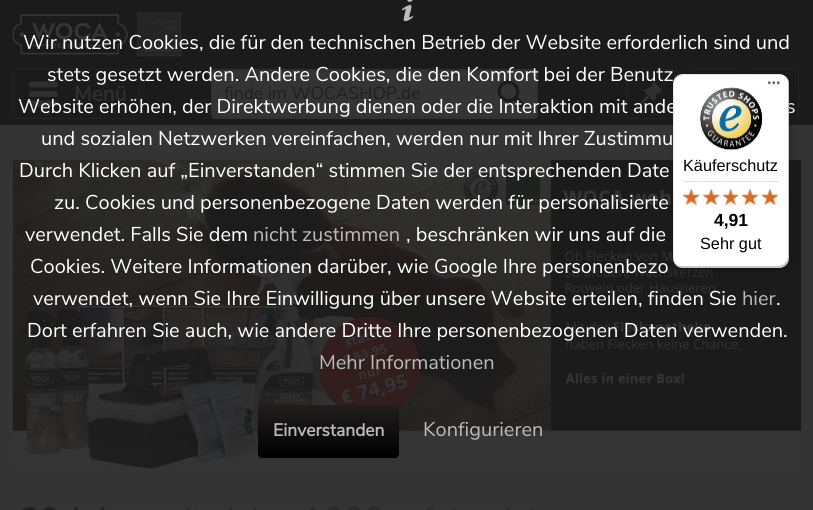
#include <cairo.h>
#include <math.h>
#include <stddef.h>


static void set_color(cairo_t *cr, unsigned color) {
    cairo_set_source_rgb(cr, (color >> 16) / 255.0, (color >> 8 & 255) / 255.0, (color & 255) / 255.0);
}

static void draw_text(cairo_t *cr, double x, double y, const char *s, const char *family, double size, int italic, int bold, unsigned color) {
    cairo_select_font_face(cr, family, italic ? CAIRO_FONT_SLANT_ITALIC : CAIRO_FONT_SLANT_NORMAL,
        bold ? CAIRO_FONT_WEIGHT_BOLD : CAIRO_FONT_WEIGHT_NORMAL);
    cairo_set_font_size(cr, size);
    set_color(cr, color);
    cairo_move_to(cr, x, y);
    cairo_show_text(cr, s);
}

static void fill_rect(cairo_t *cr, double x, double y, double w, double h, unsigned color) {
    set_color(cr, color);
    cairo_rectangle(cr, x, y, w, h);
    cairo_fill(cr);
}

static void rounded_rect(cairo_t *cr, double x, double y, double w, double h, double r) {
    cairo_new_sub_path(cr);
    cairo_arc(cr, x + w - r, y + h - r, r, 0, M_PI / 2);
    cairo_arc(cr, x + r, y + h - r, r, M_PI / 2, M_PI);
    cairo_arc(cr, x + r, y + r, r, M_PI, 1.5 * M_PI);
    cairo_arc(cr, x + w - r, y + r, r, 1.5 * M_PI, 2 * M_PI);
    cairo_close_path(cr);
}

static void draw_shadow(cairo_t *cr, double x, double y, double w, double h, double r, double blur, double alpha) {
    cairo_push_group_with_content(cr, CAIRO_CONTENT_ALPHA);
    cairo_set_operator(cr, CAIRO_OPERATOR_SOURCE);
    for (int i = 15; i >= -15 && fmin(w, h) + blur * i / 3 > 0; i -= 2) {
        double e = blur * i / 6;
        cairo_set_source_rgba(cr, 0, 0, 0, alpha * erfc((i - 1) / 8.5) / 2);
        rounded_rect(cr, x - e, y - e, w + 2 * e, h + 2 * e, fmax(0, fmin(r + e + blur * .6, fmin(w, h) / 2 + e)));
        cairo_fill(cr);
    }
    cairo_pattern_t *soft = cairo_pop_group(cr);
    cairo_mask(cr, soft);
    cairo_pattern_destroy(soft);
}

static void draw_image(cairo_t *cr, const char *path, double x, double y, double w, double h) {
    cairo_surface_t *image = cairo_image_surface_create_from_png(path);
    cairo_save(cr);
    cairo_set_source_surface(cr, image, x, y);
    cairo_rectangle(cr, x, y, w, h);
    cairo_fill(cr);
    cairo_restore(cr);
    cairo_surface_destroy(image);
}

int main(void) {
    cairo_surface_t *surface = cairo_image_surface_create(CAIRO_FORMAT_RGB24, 813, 510);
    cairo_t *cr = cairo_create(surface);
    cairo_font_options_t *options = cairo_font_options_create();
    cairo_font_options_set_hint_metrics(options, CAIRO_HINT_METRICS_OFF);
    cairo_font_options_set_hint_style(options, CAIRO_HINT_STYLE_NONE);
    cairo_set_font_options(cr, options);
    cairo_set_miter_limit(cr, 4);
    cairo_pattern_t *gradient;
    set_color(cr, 0x343434);
    cairo_paint(cr);
    fill_rect(cr, 0, 0, 813, 125, 0x1B1B1B);
    draw_image(cr, "assets/img1.png", 401, 0, 13, 22);
    draw_image(cr, "assets/img2.png", 12, 12, 170, 45);
    draw_text(cr, 23, 49, "Wir nutzen Cookies, die für den technischen Betrieb der Website erforderlich sind und", "Nunito Sans", 20, 0, 0, 0xFFFFFF);
    rounded_rect(cr, 13.5, 69.5, 126, 49, 3.5);
    set_color(cr, 0x222221);
    cairo_set_line_width(cr, 1);
    cairo_stroke(cr);
    draw_image(cr, "assets/img3.png", 28, 81, 31, 26);
    set_color(cr, 0x343434);
    rounded_rect(cr, 211, 69, 327, 50, 4);
    cairo_fill(cr);
    set_color(cr, 0x313132);
    cairo_new_path(cr);
    cairo_move_to(cr, 215, 71);
    cairo_line_to(cr, 534, 71);
    cairo_curve_to(cr, 535, 71, 536, 72, 536, 74);
    cairo_line_to(cr, 536, 72);
    cairo_curve_to(cr, 536, 71, 535, 70, 534, 70);
    cairo_line_to(cr, 216, 70);
    cairo_curve_to(cr, 214, 70, 213, 71, 213, 72);
    cairo_close_path(cr);
    cairo_fill(cr);
    cairo_new_path(cr);
    cairo_move_to(cr, 213, 70.5);
    cairo_line_to(cr, 215, 69.5);
    cairo_line_to(cr, 534, 69.5);
    cairo_line_to(cr, 536, 70.5);
    set_color(cr, 0x2F2F31);
    cairo_set_line_width(cr, 1.2);
    cairo_stroke(cr);
    cairo_new_path(cr);
    cairo_move_to(cr, 536, 70.5);
    cairo_line_to(cr, 537, 72.5);
    cairo_line_to(cr, 537, 115);
    cairo_line_to(cr, 536, 117);
    cairo_line_to(cr, 534, 118);
    cairo_line_to(cr, 215, 118);
    cairo_line_to(cr, 213, 117);
    cairo_line_to(cr, 212, 115);
    cairo_line_to(cr, 212, 72.5);
    cairo_line_to(cr, 213, 70.5);
    set_color(cr, 0x313132);
    cairo_stroke(cr);
    draw_image(cr, "assets/img4.png", 497, 80, 28, 28);
    rounded_rect(cr, 626.5, 69.5, 49, 49, 3.5);
    set_color(cr, 0x222221);
    cairo_set_line_width(cr, 1);
    cairo_stroke(cr);
    draw_image(cr, "assets/img5.png", 640, 82, 22, 23);
    draw_text(cr, 47, 81, "stets gesetzt werden. Andere Cookies, die den Komfort bei der Benutz", "Nunito Sans", 20, 0, 0, 0xFFFFFF);
    draw_text(cr, 18, 113, "Website erhöhen, der Direktwerbung dienen oder die Interaktion mit ande", "Nunito Sans", 20, 0, 0, 0xFFFFFF);
    rounded_rect(cr, 749.5, 69.5, 49, 49, 3.5);
    set_color(cr, 0x222221);
    cairo_stroke(cr);
    draw_text(cr, 786, 113, "s", "Nunito Sans", 20, 0, 0, 0xFFFFFF);
    draw_text(cr, 41, 145, "und sozialen Netzwerken vereinfachen, werden nur mit Ihrer Zustimmu", "Nunito Sans", 20, 0, 0, 0xFFFFFF);
    draw_image(cr, "assets/img6.png", 12, 160, 790, 309);
    draw_text(cr, 19, 177, "Durch Klicken auf „Einverstanden“ stimmen Sie der entsprechenden Date", "Nunito Sans", 20, 0, 0, 0xFFFFFF);
    draw_text(cr, 54, 209, "zu. Cookies und personenbezogene Daten werden für personalisierte", "Nunito Sans", 20, 0, 0, 0xFFFFFF);
    draw_text(cr, 25, 241, "verwendet. Falls Sie dem", "Nunito Sans", 20, 0, 0, 0xFFFFFF);
    draw_text(cr, 253, 241, "nicht zustimmen", "Nunito Sans", 20, 0, 0, 0xBBBBBB);
    draw_text(cr, 406, 241, ", beschränken wir uns auf die", "Nunito Sans", 20, 0, 0, 0xFFFFFF);
    draw_text(cr, 30, 273, "Cookies. Weitere Informationen darüber, wie Google Ihre personenbezo", "Nunito Sans", 20, 0, 0, 0xFFFFFF);
    draw_text(cr, 33, 305, "verwendet, wenn Sie Ihre Einwilligung über unsere Website erteilen, finden Sie", "Nunito Sans", 20, 0, 0, 0xFFFFFF);
    draw_text(cr, 742, 305, "hier", "Nunito Sans", 20, 0, 0, 0xBBBBBB);
    draw_text(cr, 776, 305, ".", "Nunito Sans", 20, 0, 0, 0xFFFFFF);
    draw_text(cr, 27, 337, "Dort erfahren Sie auch, wie andere Dritte Ihre personenbezogenen Daten verwenden.", "Nunito Sans", 20, 0, 0, 0xFFFFFF);
    draw_text(cr, 319, 369, "Mehr Informationen", "Nunito Sans", 20, 0, 0, 0xBBBBBB);
    gradient = cairo_pattern_create_linear(328, 405, 328, 458);
    cairo_pattern_add_color_stop_rgba(gradient, 0, 0.125, 0.114, 0.114, 1);
    cairo_pattern_add_color_stop_rgba(gradient, 1, 0, 0, 0, 1);
    cairo_set_source(cr, gradient);
    cairo_pattern_destroy(gradient);
    rounded_rect(cr, 258, 405, 141, 53, 4);
    cairo_fill(cr);
    draw_text(cr, 273, 436, "Einverstanden", "Nunito Sans", 17.5, 0, 1, 0xBBBBBB);
    draw_text(cr, 423, 436, "Konfigurieren", "Nunito Sans", 20, 0, 0, 0xBBBBBB);
    draw_text(cr, 74, 101, "Menü", "Nunito Sans", 21, 0, 1, 0x2F2F2F);
    draw_text(cr, 224, 99, "finde im WOCASHOP.de", "Nunito Sans", 17.5, 0, 0, 0x1F1F1F);
    rounded_rect(cr, 688.5, 69.5, 49, 49, 3.5);
    set_color(cr, 0x222221);
    cairo_stroke(cr);
    draw_image(cr, "assets/img7.png", 21, 506, 512, 4);
    set_color(cr, 0x000000);
    draw_shadow(cr, 676, 78, 117, 193, 10, 5, 0.15);
    draw_shadow(cr, 674, 75, 116, 194, 10, 1, 0.15);
    set_color(cr, 0xFFFFFF);
    rounded_rect(cr, 673, 74, 116, 194, 10);
    cairo_fill(cr);
    cairo_set_source_rgba(cr, 0, 0, 0, 0.1);
    cairo_new_path(cr);
    cairo_move_to(cr, 684, 75);
    cairo_line_to(cr, 780, 75);
    cairo_curve_to(cr, 782, 75, 784, 75, 785, 76);
    cairo_curve_to(cr, 784, 75, 781, 74, 779, 74);
    cairo_line_to(cr, 683, 74);
    cairo_curve_to(cr, 677, 74, 673, 78, 673, 84);
    cairo_line_to(cr, 673, 258);
    cairo_curve_to(cr, 673, 261, 674, 264, 677, 266);
    cairo_curve_to(cr, 675, 264, 674, 261, 674, 259);
    cairo_line_to(cr, 674, 85);
    cairo_curve_to(cr, 674, 79, 678, 75, 684, 75);
    cairo_close_path(cr);
    cairo_fill(cr);
    cairo_set_source_rgba(cr, 0, 0, 0, 0.2);
    cairo_new_path(cr);
    cairo_move_to(cr, 675, 264);
    cairo_curve_to(cr, 677, 266, 680, 268, 683, 268);
    cairo_line_to(cr, 779, 268);
    cairo_curve_to(cr, 785, 268, 789, 264, 789, 258);
    cairo_line_to(cr, 789, 84);
    cairo_curve_to(cr, 789, 82, 788, 80, 787, 78);
    cairo_curve_to(cr, 788, 79, 788, 81, 788, 82);
    cairo_line_to(cr, 788, 256);
    cairo_curve_to(cr, 788, 262, 783, 266, 778, 266);
    cairo_line_to(cr, 681, 266);
    cairo_curve_to(cr, 679, 266, 677, 265, 675, 264);
    cairo_close_path(cr);
    cairo_fill(cr);
    cairo_set_source_rgba(cr, 0.196, 0.196, 0.196, 0.2);
    cairo_new_path(cr);
    cairo_move_to(cr, 675, 265);
    cairo_curve_to(cr, 677, 267, 680, 268, 683, 268);
    cairo_line_to(cr, 779, 268);
    cairo_curve_to(cr, 785, 268, 789, 264, 789, 258);
    cairo_line_to(cr, 789, 84);
    cairo_curve_to(cr, 789, 82, 788, 79, 787, 78);
    cairo_curve_to(cr, 788, 79, 788, 81, 788, 83);
    cairo_line_to(cr, 788, 257);
    cairo_curve_to(cr, 788, 262, 784, 267, 778, 267);
    cairo_line_to(cr, 682, 267);
    cairo_curve_to(cr, 679, 267, 677, 266, 675, 265);
    cairo_close_path(cr);
    cairo_fill(cr);
    cairo_set_source_rgba(cr, 1, 1, 1, 0.3);
    cairo_new_path(cr);
    cairo_move_to(cr, 675, 265);
    cairo_curve_to(cr, 677, 267, 680, 268, 683, 268);
    cairo_line_to(cr, 779, 268);
    cairo_curve_to(cr, 785, 268, 789, 264, 789, 258);
    cairo_line_to(cr, 789, 84);
    cairo_curve_to(cr, 789, 81, 788, 78, 785, 76);
    cairo_curve_to(cr, 787, 78, 788, 81, 788, 83);
    cairo_line_to(cr, 788, 257);
    cairo_curve_to(cr, 788, 262, 784, 267, 778, 267);
    cairo_line_to(cr, 682, 267);
    cairo_curve_to(cr, 679, 267, 677, 266, 675, 265);
    cairo_close_path(cr);
    cairo_fill(cr);
    draw_image(cr, "assets/img8.png", 768, 81, 12, 4);
    draw_image(cr, "assets/img9.png", 700, 87, 63, 64);
    draw_text(cr, 683, 171, "Käuferschutz", "Liberation Sans", 16.25, 0, 0, 0x000000);
    fill_rect(cr, 683, 181, 96, 1, 0xE5E5E5);
    draw_image(cr, "assets/img15.png", 682, 189, 18, 16);
    draw_image(cr, "assets/img10.png", 682, 188, 18, 17);
    draw_image(cr, "assets/img16.png", 703, 189, 17, 16);
    draw_image(cr, "assets/img11.png", 702, 188, 18, 17);
    draw_image(cr, "assets/img17.png", 722, 189, 17, 16);
    draw_image(cr, "assets/img12.png", 722, 188, 17, 17);
    draw_image(cr, "assets/img18.png", 741, 189, 18, 16);
    draw_image(cr, "assets/img13.png", 741, 188, 18, 17);
    draw_image(cr, "assets/img19.png", 761, 189, 18, 16);
    draw_image(cr, "assets/img14.png", 761, 188, 17, 17);
    draw_text(cr, 714, 226, "4,91", "Liberation Sans", 17.5, 0, 1, 0x000000);
    draw_text(cr, 700, 249, "Sehr gut", "Liberation Sans", 16.25, 0, 0, 0x000000);
    cairo_surface_write_to_png(surface, "output.png");
    cairo_font_options_destroy(options);
    cairo_destroy(cr);
    cairo_surface_destroy(surface);
    return 0;
}
